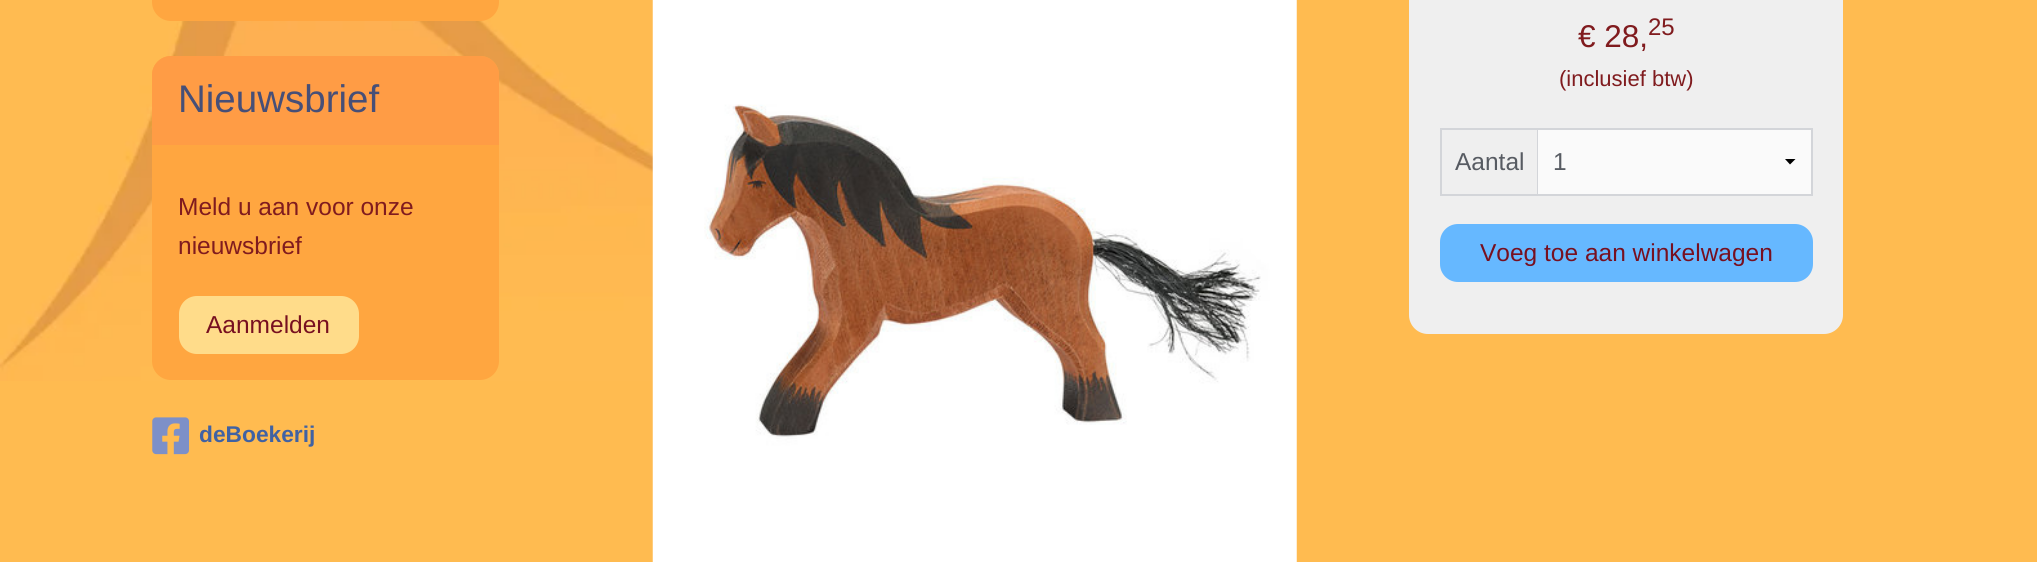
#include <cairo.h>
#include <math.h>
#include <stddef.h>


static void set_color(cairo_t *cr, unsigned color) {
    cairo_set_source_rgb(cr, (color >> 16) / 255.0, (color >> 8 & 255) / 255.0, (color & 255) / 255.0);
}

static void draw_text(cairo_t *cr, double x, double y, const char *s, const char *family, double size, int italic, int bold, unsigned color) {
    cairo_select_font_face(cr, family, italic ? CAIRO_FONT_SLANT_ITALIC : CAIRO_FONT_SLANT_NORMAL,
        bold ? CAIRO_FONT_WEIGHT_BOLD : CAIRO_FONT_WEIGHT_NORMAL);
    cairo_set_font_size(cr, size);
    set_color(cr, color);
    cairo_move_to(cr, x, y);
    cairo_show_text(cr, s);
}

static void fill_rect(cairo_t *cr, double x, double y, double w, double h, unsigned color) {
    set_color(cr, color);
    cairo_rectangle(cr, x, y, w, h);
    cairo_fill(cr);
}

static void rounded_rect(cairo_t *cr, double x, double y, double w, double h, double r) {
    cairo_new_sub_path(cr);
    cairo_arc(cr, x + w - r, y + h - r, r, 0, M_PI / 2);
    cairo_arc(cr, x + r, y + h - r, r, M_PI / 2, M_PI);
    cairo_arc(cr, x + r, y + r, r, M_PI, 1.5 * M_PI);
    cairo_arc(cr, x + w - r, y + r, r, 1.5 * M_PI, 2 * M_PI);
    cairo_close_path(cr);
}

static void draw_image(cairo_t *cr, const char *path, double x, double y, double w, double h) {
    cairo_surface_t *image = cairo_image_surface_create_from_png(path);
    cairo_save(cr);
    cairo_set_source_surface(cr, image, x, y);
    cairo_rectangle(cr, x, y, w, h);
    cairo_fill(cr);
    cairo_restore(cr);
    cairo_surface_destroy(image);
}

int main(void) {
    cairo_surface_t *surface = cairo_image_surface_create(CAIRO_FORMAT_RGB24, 2037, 562);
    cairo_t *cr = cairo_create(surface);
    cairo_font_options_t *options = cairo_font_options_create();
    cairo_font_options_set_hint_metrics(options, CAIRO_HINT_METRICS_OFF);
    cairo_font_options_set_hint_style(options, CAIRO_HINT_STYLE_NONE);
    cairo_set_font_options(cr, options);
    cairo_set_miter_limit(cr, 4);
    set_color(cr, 0xFFBB50);
    cairo_paint(cr);
    draw_image(cr, "assets/img1.png", 0, 0, 653, 381);
    set_color(cr, 0xFFA640);
    rounded_rect(cr, 152, -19, 347, 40, 19);
    cairo_fill(cr);
    rounded_rect(cr, 152, 56, 347, 324, 19);
    cairo_fill(cr);
    set_color(cr, 0xFF9C45);
    cairo_new_path(cr);
    cairo_move_to(cr, 171, 56);
    cairo_line_to(cr, 480, 56);
    cairo_curve_to(cr, 490.5, 56, 499, 64.5, 499, 75);
    cairo_line_to(cr, 499, 145);
    cairo_line_to(cr, 152, 145);
    cairo_line_to(cr, 152, 75);
    cairo_curve_to(cr, 152, 64.5, 160.5, 56, 171, 56);
    cairo_close_path(cr);
    cairo_fill(cr);
    draw_text(cr, 178, 112, "Nieuwsbrief", "Liberation Sans", 38.5, 0, 0, 0x474F77);
    draw_text(cr, 178, 215, "Meld u aan voor onze", "Liberation Sans", 24.5, 0, 0, 0x801B1E);
    draw_text(cr, 178, 254, "nieuwsbrief", "Liberation Sans", 24.5, 0, 0, 0x801B1E);
    set_color(cr, 0xFFDC8A);
    rounded_rect(cr, 179, 296, 180, 58, 18);
    cairo_fill(cr);
    draw_text(cr, 206, 333, "Aanmelden", "Liberation Sans", 24.5, 0, 0, 0x771020);
    draw_image(cr, "assets/img2.png", 152, 417, 37, 38);
    draw_text(cr, 199, 442, "deBoekerij", "Liberation Sans", 22.75, 0, 1, 0x4062A3);
    draw_image(cr, "assets/img3.png", 652, 0, 645, 562);
    set_color(cr, 0xEFEFEF);
    rounded_rect(cr, 1409, -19, 434, 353, 19);
    cairo_fill(cr);
    draw_text(cr, 1578, 47, "€ 28,", "Liberation Sans", 31.5, 0, 0, 0x801B1E);
    draw_text(cr, 1648, 35, "25", "Liberation Sans", 24, 0, 0, 0x801B1E);
    draw_text(cr, 1559, 86, "(inclusief btw)", "Liberation Sans", 22, 0, 0, 0x801B1E);
    fill_rect(cr, 1440, 128, 373, 2, 0xD3D5D9);
    fill_rect(cr, 1811, 128, 2, 68, 0xD3D5D9);
    fill_rect(cr, 1537, 130, 1, 66, 0xD3D5D9);
    fill_rect(cr, 1440, 194, 373, 2, 0xD3D5D9);
    fill_rect(cr, 1440, 128, 2, 68, 0xD3D5D9);
    draw_text(cr, 1455, 170, "Aantal", "Liberation Sans", 24.5, 0, 0, 0x575B62);
    fill_rect(cr, 1538, 130, 273, 64, 0xFAFAFA);
    set_color(cr, 0x000000);
    cairo_new_path(cr);
    cairo_move_to(cr, 1795.5, 159);
    cairo_line_to(cr, 1790, 164.5);
    cairo_line_to(cr, 1785, 159);
    cairo_close_path(cr);
    cairo_fill(cr);
    draw_text(cr, 1553, 170, "1", "Liberation Sans", 24.5, 0, 0, 0x575B62);
    set_color(cr, 0x66B8FF);
    rounded_rect(cr, 1440, 224, 373, 58, 18);
    cairo_fill(cr);
    draw_text(cr, 1480, 261, "Voeg toe aan winkelwagen", "Liberation Sans", 24.5, 0, 0, 0x771020);
    cairo_surface_write_to_png(surface, "output.png");
    cairo_font_options_destroy(options);
    cairo_destroy(cr);
    cairo_surface_destroy(surface);
    return 0;
}
